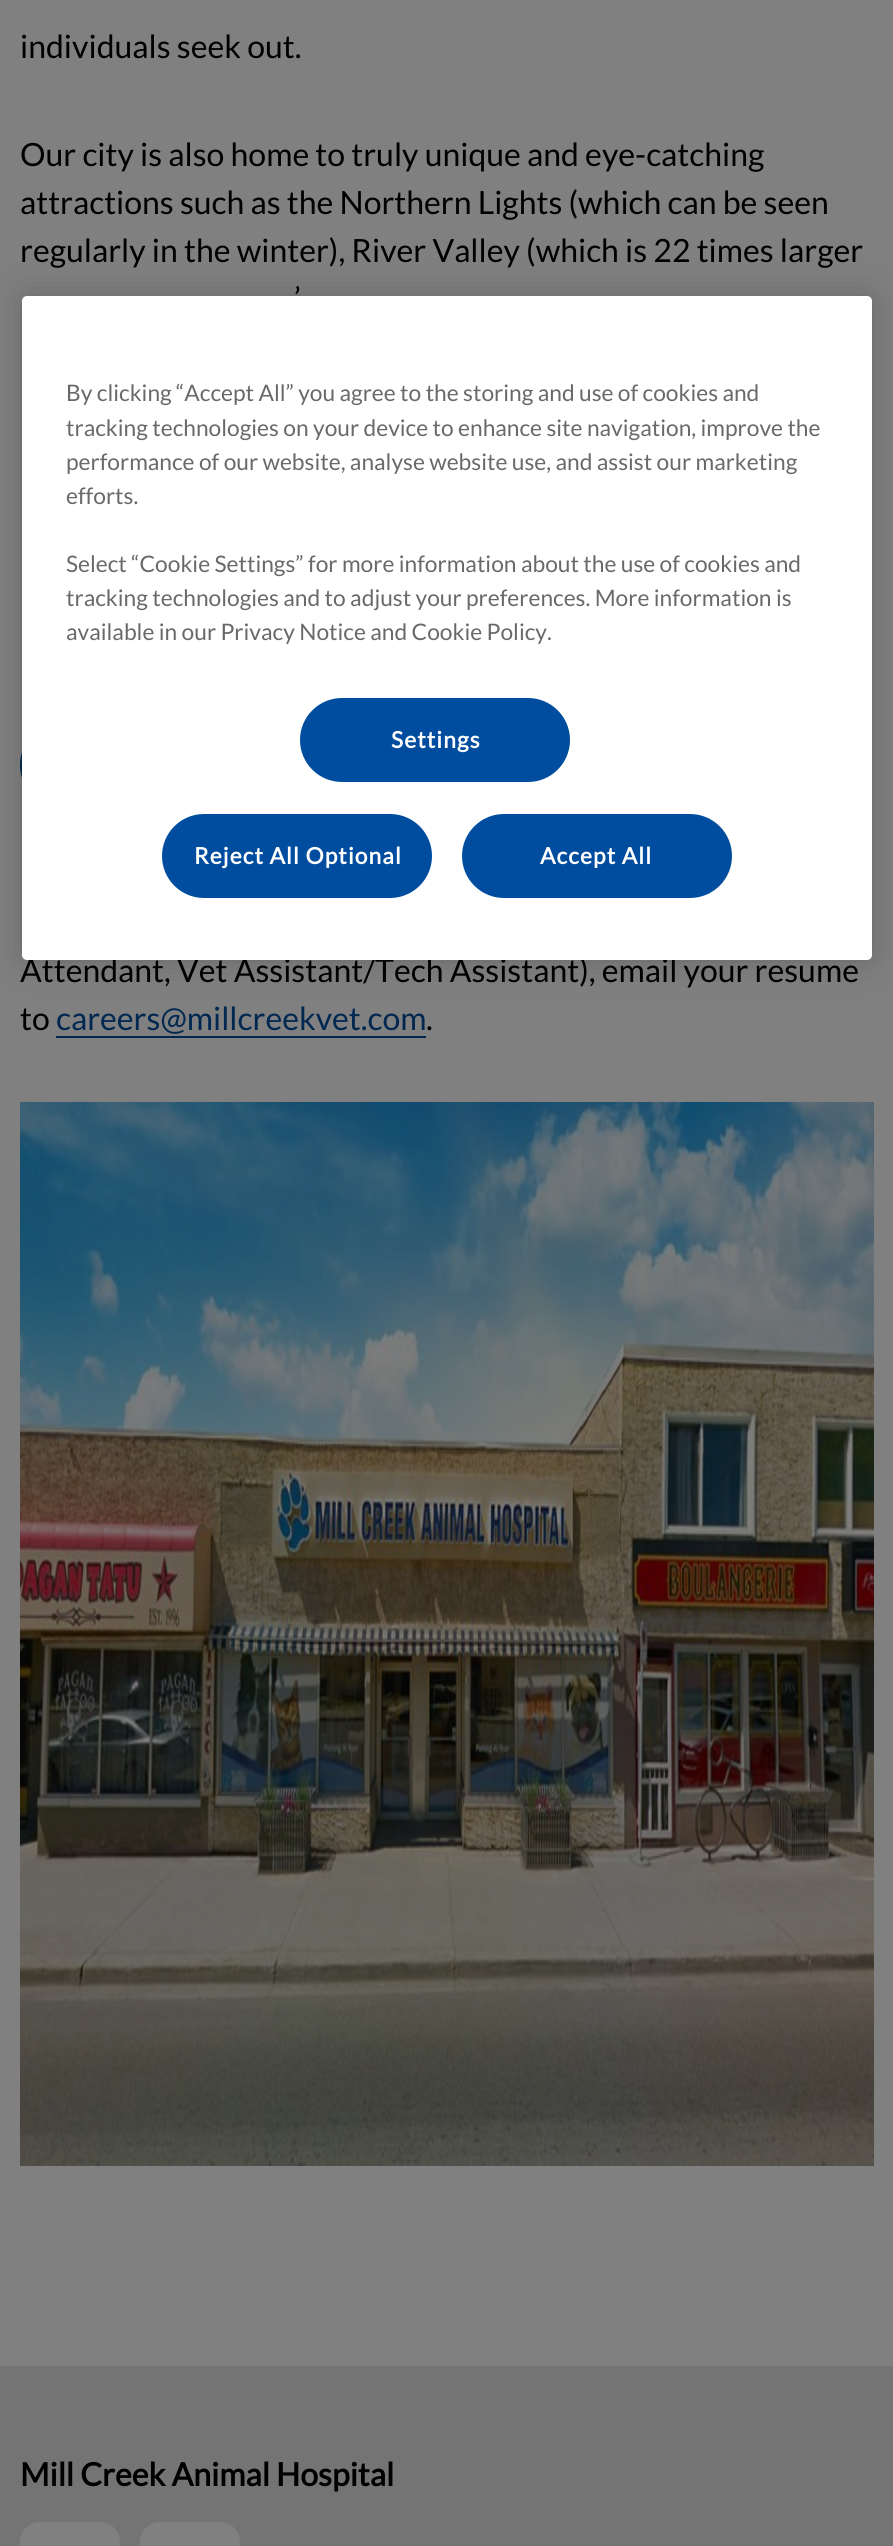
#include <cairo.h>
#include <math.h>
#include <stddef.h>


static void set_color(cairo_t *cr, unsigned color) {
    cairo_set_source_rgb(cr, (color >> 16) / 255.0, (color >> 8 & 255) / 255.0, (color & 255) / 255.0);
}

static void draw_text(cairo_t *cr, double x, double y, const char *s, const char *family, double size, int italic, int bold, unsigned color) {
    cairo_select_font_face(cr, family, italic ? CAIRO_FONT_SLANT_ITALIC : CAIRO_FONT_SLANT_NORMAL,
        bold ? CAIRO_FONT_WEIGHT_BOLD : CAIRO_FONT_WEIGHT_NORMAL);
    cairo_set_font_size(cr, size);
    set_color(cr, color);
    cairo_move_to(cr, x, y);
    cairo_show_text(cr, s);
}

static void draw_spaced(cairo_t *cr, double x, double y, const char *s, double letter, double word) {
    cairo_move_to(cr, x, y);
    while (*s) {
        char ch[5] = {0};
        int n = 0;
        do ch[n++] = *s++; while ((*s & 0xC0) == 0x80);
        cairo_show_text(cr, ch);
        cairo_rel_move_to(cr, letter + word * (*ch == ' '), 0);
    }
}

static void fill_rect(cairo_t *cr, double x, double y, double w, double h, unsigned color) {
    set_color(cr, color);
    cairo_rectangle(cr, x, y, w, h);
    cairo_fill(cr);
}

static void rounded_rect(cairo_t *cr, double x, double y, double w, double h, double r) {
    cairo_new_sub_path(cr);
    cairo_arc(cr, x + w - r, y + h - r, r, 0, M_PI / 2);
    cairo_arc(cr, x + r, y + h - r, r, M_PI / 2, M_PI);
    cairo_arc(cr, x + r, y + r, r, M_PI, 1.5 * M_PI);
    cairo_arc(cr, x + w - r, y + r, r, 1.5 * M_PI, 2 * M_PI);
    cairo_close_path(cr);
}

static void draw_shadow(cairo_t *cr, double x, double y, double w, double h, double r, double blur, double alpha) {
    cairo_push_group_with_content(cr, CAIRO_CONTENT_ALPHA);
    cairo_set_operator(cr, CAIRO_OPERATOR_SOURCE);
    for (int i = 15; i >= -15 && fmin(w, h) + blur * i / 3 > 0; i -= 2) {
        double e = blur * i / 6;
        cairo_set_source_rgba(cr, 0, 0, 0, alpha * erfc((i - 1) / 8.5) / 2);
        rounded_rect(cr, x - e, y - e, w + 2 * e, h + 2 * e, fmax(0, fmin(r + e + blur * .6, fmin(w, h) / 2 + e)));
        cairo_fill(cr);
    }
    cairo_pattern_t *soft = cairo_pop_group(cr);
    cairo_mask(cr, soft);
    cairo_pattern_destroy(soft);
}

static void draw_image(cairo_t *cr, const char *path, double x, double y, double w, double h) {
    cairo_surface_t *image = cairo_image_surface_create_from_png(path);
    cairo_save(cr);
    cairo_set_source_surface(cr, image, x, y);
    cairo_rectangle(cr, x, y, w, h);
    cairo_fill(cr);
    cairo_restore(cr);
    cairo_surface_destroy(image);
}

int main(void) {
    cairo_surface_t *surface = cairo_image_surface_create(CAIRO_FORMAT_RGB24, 893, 2546);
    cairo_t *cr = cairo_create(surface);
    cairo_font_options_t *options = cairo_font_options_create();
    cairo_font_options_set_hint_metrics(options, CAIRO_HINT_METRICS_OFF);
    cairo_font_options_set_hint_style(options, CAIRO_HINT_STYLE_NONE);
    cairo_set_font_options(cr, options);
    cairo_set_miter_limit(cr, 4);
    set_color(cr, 0x808080);
    cairo_paint(cr);
    draw_text(cr, 20, 58, "individuals seek out.", "Lato", 32, 0, 0, 0x000000);
    draw_text(cr, 20, 166, "Our city is also home to truly unique and eye-catching", "Lato", 32, 0, 0, 0x000000);
    draw_text(cr, 20, 214, "attractions such as the Northern Lights (which can be seen", "Lato", 32, 0, 0, 0x000000);
    draw_text(cr, 20, 262, "regularly in the winter), River Valley (which is 22 times larger", "Lato", 32, 0, 0, 0x000000);
    draw_text(cr, 294, 310, "’", "Lato", 32, 0, 0, 0x000000);
    set_color(cr, 0x002750);
    rounded_rect(cr, 20, 722, 404, 86, 43);
    cairo_fill(cr);
    draw_text(cr, 20, 982, "Attendant, Vet Assistant/Tech Assistant), email your resume", "Lato", 32, 0, 0, 0x000000);
    draw_text(cr, 20, 1030, "to", "Lato", 32, 0, 0, 0x000000);
    draw_text(cr, 56, 1030, "careers@millcreekvet.com", "Lato", 32, 0, 0, 0x002750);
    fill_rect(cr, 56, 1036, 370, 2, 0x002750);
    draw_text(cr, 426, 1030, ".", "Lato", 32, 0, 0, 0x000000);
    draw_image(cr, "assets/img1.png", 20, 1102, 854, 1064);
    fill_rect(cr, 0, 2366, 893, 180, 0x747474);
    draw_text(cr, 20, 2486, "Mill Creek Animal Hospital", "Lato", 32, 0, 1, 0x000000);
    set_color(cr, 0x808080);
    rounded_rect(cr, 20, 2522, 100, 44, 20);
    cairo_fill(cr);
    rounded_rect(cr, 140, 2522, 100, 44, 20);
    cairo_fill(cr);
    set_color(cr, 0x000000);
    draw_shadow(cr, 22, 296, 850, 664, 5, 18, 0.2);
    set_color(cr, 0xFFFFFF);
    rounded_rect(cr, 22, 296, 850, 664, 5);
    cairo_fill(cr);
    draw_text(cr, 66, 401, "By clicking “Accept All” you agree to the storing and use of cookies and", "Lato", 22.75, 0, 0, 0x696969);
    draw_text(cr, 66, 436, "tracking technologies on your device to enhance site navigation, improve the", "Lato", 22.75, 0, 0, 0x696969);
    draw_text(cr, 66, 470, "performance of our website, analyse website use, and assist our marketing", "Lato", 22.75, 0, 0, 0x696969);
    draw_text(cr, 66, 504, "efforts.", "Lato", 22.75, 0, 0, 0x696969);
    draw_text(cr, 66, 572, "Select “Cookie Settings” for more information about the use of cookies and", "Lato", 22.75, 0, 0, 0x696969);
    draw_text(cr, 66, 606, "tracking technologies and to adjust your preferences. More information is", "Lato", 22.75, 0, 0, 0x696969);
    draw_text(cr, 66, 640, "available in our Privacy Notice and Cookie Policy.", "Lato", 22.75, 0, 0, 0x696969);
    set_color(cr, 0x004D9F);
    rounded_rect(cr, 301, 699, 268, 82, 41);
    cairo_fill_preserve(cr);
    cairo_stroke(cr);
    cairo_select_font_face(cr, "Lato", CAIRO_FONT_SLANT_NORMAL, CAIRO_FONT_WEIGHT_BOLD);
    set_color(cr, 0xFFFFFF);
    draw_spaced(cr, 391, 748, "Settings", 1.1, 0);
    set_color(cr, 0x004D9F);
    rounded_rect(cr, 163, 815, 268, 82, 41);
    cairo_fill_preserve(cr);
    cairo_stroke(cr);
    set_color(cr, 0xFFFFFF);
    draw_spaced(cr, 194, 864, "Reject All Optional", 1.1, 0);
    set_color(cr, 0x004D9F);
    rounded_rect(cr, 463, 815, 268, 82, 41);
    cairo_fill_preserve(cr);
    cairo_stroke(cr);
    set_color(cr, 0xFFFFFF);
    draw_spaced(cr, 540, 864, "Accept All", 1.1, 0);
    cairo_surface_write_to_png(surface, "output.png");
    cairo_font_options_destroy(options);
    cairo_destroy(cr);
    cairo_surface_destroy(surface);
    return 0;
}
